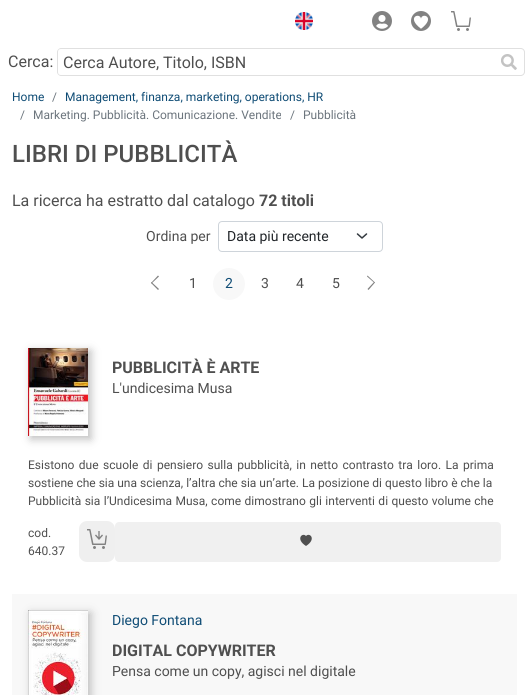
#include <cairo.h>
#include <math.h>
#include <stddef.h>


static void set_color(cairo_t *cr, unsigned color) {
    cairo_set_source_rgb(cr, (color >> 16) / 255.0, (color >> 8 & 255) / 255.0, (color & 255) / 255.0);
}

static void draw_text(cairo_t *cr, double x, double y, const char *s, const char *family, double size, int italic, int bold, unsigned color) {
    cairo_select_font_face(cr, family, italic ? CAIRO_FONT_SLANT_ITALIC : CAIRO_FONT_SLANT_NORMAL,
        bold ? CAIRO_FONT_WEIGHT_BOLD : CAIRO_FONT_WEIGHT_NORMAL);
    cairo_set_font_size(cr, size);
    set_color(cr, color);
    cairo_move_to(cr, x, y);
    cairo_show_text(cr, s);
}

static void draw_spaced(cairo_t *cr, double x, double y, const char *s, double letter, double word) {
    cairo_move_to(cr, x, y);
    while (*s) {
        char ch[5] = {0};
        int n = 0;
        do ch[n++] = *s++; while ((*s & 0xC0) == 0x80);
        cairo_show_text(cr, ch);
        cairo_rel_move_to(cr, letter + word * (*ch == ' '), 0);
    }
}

static void fill_rect(cairo_t *cr, double x, double y, double w, double h, unsigned color) {
    set_color(cr, color);
    cairo_rectangle(cr, x, y, w, h);
    cairo_fill(cr);
}

static void rounded_rect(cairo_t *cr, double x, double y, double w, double h, double r) {
    cairo_new_sub_path(cr);
    cairo_arc(cr, x + w - r, y + h - r, r, 0, M_PI / 2);
    cairo_arc(cr, x + r, y + h - r, r, M_PI / 2, M_PI);
    cairo_arc(cr, x + r, y + r, r, M_PI, 1.5 * M_PI);
    cairo_arc(cr, x + w - r, y + r, r, 1.5 * M_PI, 2 * M_PI);
    cairo_close_path(cr);
}

static void draw_shadow(cairo_t *cr, double x, double y, double w, double h, double r, double blur, double alpha) {
    cairo_push_group_with_content(cr, CAIRO_CONTENT_ALPHA);
    cairo_set_operator(cr, CAIRO_OPERATOR_SOURCE);
    for (int i = 15; i >= -15 && fmin(w, h) + blur * i / 3 > 0; i -= 2) {
        double e = blur * i / 6;
        cairo_set_source_rgba(cr, 0, 0, 0, alpha * erfc((i - 1) / 8.5) / 2);
        rounded_rect(cr, x - e, y - e, w + 2 * e, h + 2 * e, fmax(0, fmin(r + e + blur * .6, fmin(w, h) / 2 + e)));
        cairo_fill(cr);
    }
    cairo_pattern_t *soft = cairo_pop_group(cr);
    cairo_mask(cr, soft);
    cairo_pattern_destroy(soft);
}

static void draw_image(cairo_t *cr, const char *path, double x, double y, double w, double h) {
    cairo_surface_t *image = cairo_image_surface_create_from_png(path);
    cairo_save(cr);
    cairo_set_source_surface(cr, image, x, y);
    cairo_rectangle(cr, x, y, w, h);
    cairo_fill(cr);
    cairo_restore(cr);
    cairo_surface_destroy(image);
}

int main(void) {
    cairo_surface_t *surface = cairo_image_surface_create(CAIRO_FORMAT_RGB24, 529, 695);
    cairo_t *cr = cairo_create(surface);
    cairo_font_options_t *options = cairo_font_options_create();
    cairo_font_options_set_hint_metrics(options, CAIRO_HINT_METRICS_OFF);
    cairo_font_options_set_hint_style(options, CAIRO_HINT_STYLE_NONE);
    cairo_set_font_options(cr, options);
    cairo_set_miter_limit(cr, 4);
    set_color(cr, 0xFFFFFF);
    cairo_paint(cr);
    draw_image(cr, "assets/img1.png", 295, 12, 18, 18);
    draw_image(cr, "assets/img2.png", 372, 11, 20, 20);
    draw_image(cr, "assets/img3.png", 411, 11, 20, 20);
    draw_image(cr, "assets/img4.png", 451, 11, 20, 20);
    draw_text(cr, 8, 67, "Cerca:", "Roboto", 16, 0, 0, 0x4F4F4F);
    set_color(cr, 0xE0E0E0);
    cairo_set_fill_rule(cr, CAIRO_FILL_RULE_EVEN_ODD);
    cairo_new_path(cr);
    cairo_move_to(cr, 61, 48);
    cairo_line_to(cr, 493, 48);
    cairo_line_to(cr, 493, 76);
    cairo_line_to(cr, 61, 76);
    cairo_curve_to(cr, 59, 76, 57, 74, 57, 72);
    cairo_line_to(cr, 57, 52);
    cairo_curve_to(cr, 57, 50, 59, 48, 61, 48);
    cairo_close_path(cr);
    cairo_move_to(cr, 61, 49);
    cairo_line_to(cr, 493, 49);
    cairo_line_to(cr, 493, 75);
    cairo_line_to(cr, 61, 75);
    cairo_curve_to(cr, 59, 75, 58, 74, 58, 72);
    cairo_line_to(cr, 58, 52);
    cairo_curve_to(cr, 58, 50, 59, 49, 61, 49);
    cairo_close_path(cr);
    cairo_fill(cr);
    draw_text(cr, 63, 68, "Cerca Autore, Titolo, ISBN", "Roboto", 16, 0, 0, 0x4F4F4F);
    set_color(cr, 0xE0E0E0);
    cairo_new_path(cr);
    cairo_move_to(cr, 493, 48);
    cairo_line_to(cr, 521, 48);
    cairo_curve_to(cr, 523, 48, 525, 50, 525, 52);
    cairo_line_to(cr, 525, 72);
    cairo_curve_to(cr, 525, 74, 523, 76, 521, 76);
    cairo_line_to(cr, 493, 76);
    cairo_close_path(cr);
    cairo_move_to(cr, 493, 49);
    cairo_line_to(cr, 521, 49);
    cairo_curve_to(cr, 522.5, 49, 524, 50.5, 524, 52);
    cairo_line_to(cr, 524, 72);
    cairo_curve_to(cr, 524, 73.5, 522.5, 75, 521, 75);
    cairo_line_to(cr, 493, 75);
    cairo_close_path(cr);
    cairo_fill(cr);
    draw_image(cr, "assets/img5.png", 501, 54, 16, 16);
    draw_text(cr, 12, 101, "Home", "Roboto", 12, 0, 0, 0x0F4C75);
    draw_text(cr, 52, 101, "/", "Roboto", 12, 0, 0, 0x6C757D);
    draw_text(cr, 65, 101, "Management, finanza, marketing, operations, HR", "Roboto", 12, 0, 0, 0x0F4C75);
    draw_text(cr, 20, 119, "/", "Roboto", 12, 0, 0, 0x6C757D);
    draw_text(cr, 33, 119, "Marketing. Pubblicità. Comunicazione. Vendite", "Roboto", 12, 0, 0, 0x6C757D);
    draw_text(cr, 290, 119, "/", "Roboto", 12, 0, 0, 0x6C757D);
    draw_text(cr, 303, 119, "Pubblicità", "Roboto", 12, 0, 0, 0x6C757D);
    draw_text(cr, 12, 162, "LIBRI DI PUBBLICITÀ", "Roboto Medium", 24, 0, 0, 0x4F4F4F);
    draw_text(cr, 12, 206, "La ricerca ha estratto dal catalogo", "Roboto", 16, 0, 0, 0x4F4F4F);
    draw_text(cr, 259, 206, "72 titoli", "Roboto", 16, 0, 1, 0x4F4F4F);
    draw_text(cr, 146, 241, "Ordina per", "Roboto", 14, 0, 0, 0x4F4F4F);
    cairo_new_path(cr);
    cairo_move_to(cr, 357.5, 234);
    cairo_line_to(cr, 362, 238);
    cairo_line_to(cr, 366.5, 234);
    set_color(cr, 0x343A40);
    cairo_set_line_width(cr, 1.5);
    cairo_set_line_cap(cr, CAIRO_LINE_CAP_ROUND);
    cairo_set_line_join(cr, CAIRO_LINE_JOIN_ROUND);
    cairo_stroke(cr);
    rounded_rect(cr, 218.5, 221.5, 164, 30, 3.5);
    set_color(cr, 0xCED4DA);
    cairo_set_line_width(cr, 1);
    cairo_set_line_cap(cr, CAIRO_LINE_CAP_BUTT);
    cairo_set_line_join(cr, CAIRO_LINE_JOIN_MITER);
    cairo_stroke(cr);
    draw_text(cr, 227, 241, "Data più recente", "Roboto", 14, 0, 0, 0x212529);
    set_color(cr, 0x828282);
    cairo_set_fill_rule(cr, CAIRO_FILL_RULE_WINDING);
    cairo_new_path(cr);
    cairo_move_to(cr, 151.5, 282);
    cairo_line_to(cr, 159, 289);
    cairo_line_to(cr, 158, 290);
    cairo_line_to(cr, 151, 283);
    cairo_close_path(cr);
    cairo_fill(cr);
    cairo_new_path(cr);
    cairo_move_to(cr, 158, 275.5);
    cairo_line_to(cr, 159, 276.5);
    cairo_line_to(cr, 151.5, 283.5);
    cairo_line_to(cr, 151, 283);
    cairo_close_path(cr);
    cairo_fill(cr);
    draw_text(cr, 189, 288, "1", "Roboto", 14, 0, 0, 0x4F4F4F);
    set_color(cr, 0xF8F8F8);
    cairo_new_path(cr);
    cairo_arc(cr, 229, 284, 16, 0, 2 * M_PI);
    cairo_fill(cr);
    draw_text(cr, 225, 288, "2", "Roboto", 14, 0, 0, 0x0F4C75);
    draw_text(cr, 261, 288, "3", "Roboto", 14, 0, 0, 0x4F4F4F);
    draw_text(cr, 296, 288, "4", "Roboto", 14, 0, 0, 0x4F4F4F);
    draw_text(cr, 332, 288, "5", "Roboto", 14, 0, 0, 0x4F4F4F);
    set_color(cr, 0x828282);
    cairo_new_path(cr);
    cairo_move_to(cr, 374.5, 283);
    cairo_line_to(cr, 367, 276.5);
    cairo_line_to(cr, 367.5, 275.5);
    cairo_line_to(cr, 375, 282.5);
    cairo_close_path(cr);
    cairo_fill(cr);
    cairo_new_path(cr);
    cairo_move_to(cr, 368.5, 290);
    cairo_line_to(cr, 367.5, 289);
    cairo_line_to(cr, 374, 282);
    cairo_line_to(cr, 375, 282.5);
    cairo_close_path(cr);
    cairo_fill(cr);
    set_color(cr, 0xBDBDBD);
    draw_shadow(cr, 31, 351, 60, 88, 0, 4.5, 1);
    draw_image(cr, "assets/img6.png", 28, 348, 60, 88);
    draw_text(cr, 112, 373, "PUBBLICITÀ È ARTE", "Roboto", 16, 0, 1, 0x4F4F4F);
    draw_text(cr, 112, 393, "L'undicesima Musa", "Roboto", 14, 0, 0, 0x4F4F4F);
    cairo_set_font_size(cr, 12);
    draw_spaced(cr, 28, 469, "Esistono due scuole di pensiero sulla pubblicità, in netto contrasto tra loro. La prima", 0, 1.5);
    draw_text(cr, 28, 487, "sostiene che sia una scienza, l’altra che sia un’arte. La posizione di questo libro è che la", "Roboto", 12, 0, 0, 0x4F4F4F);
    draw_spaced(cr, 28, 505, "Pubblicità sia l’Undicesima Musa, come dimostrano gli interventi di questo volume che", 0, 0.5);
    draw_text(cr, 28, 537, "cod.", "Roboto", 12, 0, 0, 0x4F4F4F);
    draw_text(cr, 28, 555, "640.37", "Roboto", 12, 0, 0, 0x4F4F4F);
    set_color(cr, 0xEFEFEF);
    rounded_rect(cr, 79, 521, 36, 41, 8);
    cairo_fill(cr);
    draw_image(cr, "assets/img7.png", 87, 529, 20, 20);
    set_color(cr, 0xF0F0F0);
    rounded_rect(cr, 115, 522, 386, 40, 4);
    cairo_fill(cr);
    set_color(cr, 0x4F4F4F);
    cairo_new_path(cr);
    cairo_move_to(cr, 306, 536);
    cairo_curve_to(cr, 309.5, 532, 317, 539, 306, 546);
    cairo_curve_to(cr, 295, 539, 302.5, 532, 306, 536);
    cairo_close_path(cr);
    cairo_fill(cr);
    fill_rect(cr, 12, 594, 505, 101, 0xF8F8F8);
    set_color(cr, 0xBDBDBD);
    draw_shadow(cr, 31, 613, 60, 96, 0, 4.5, 1);
    draw_image(cr, "assets/img8.png", 28, 610, 60, 85);
    draw_text(cr, 112, 625, "Diego Fontana", "Roboto", 14, 0, 0, 0x0F4C75);
    draw_text(cr, 112, 656, "DIGITAL COPYWRITER", "Roboto", 16, 0, 1, 0x4F4F4F);
    draw_text(cr, 112, 676, "Pensa come un copy, agisci nel digitale", "Roboto", 14, 0, 0, 0x4F4F4F);
    cairo_surface_write_to_png(surface, "output.png");
    cairo_font_options_destroy(options);
    cairo_destroy(cr);
    cairo_surface_destroy(surface);
    return 0;
}
